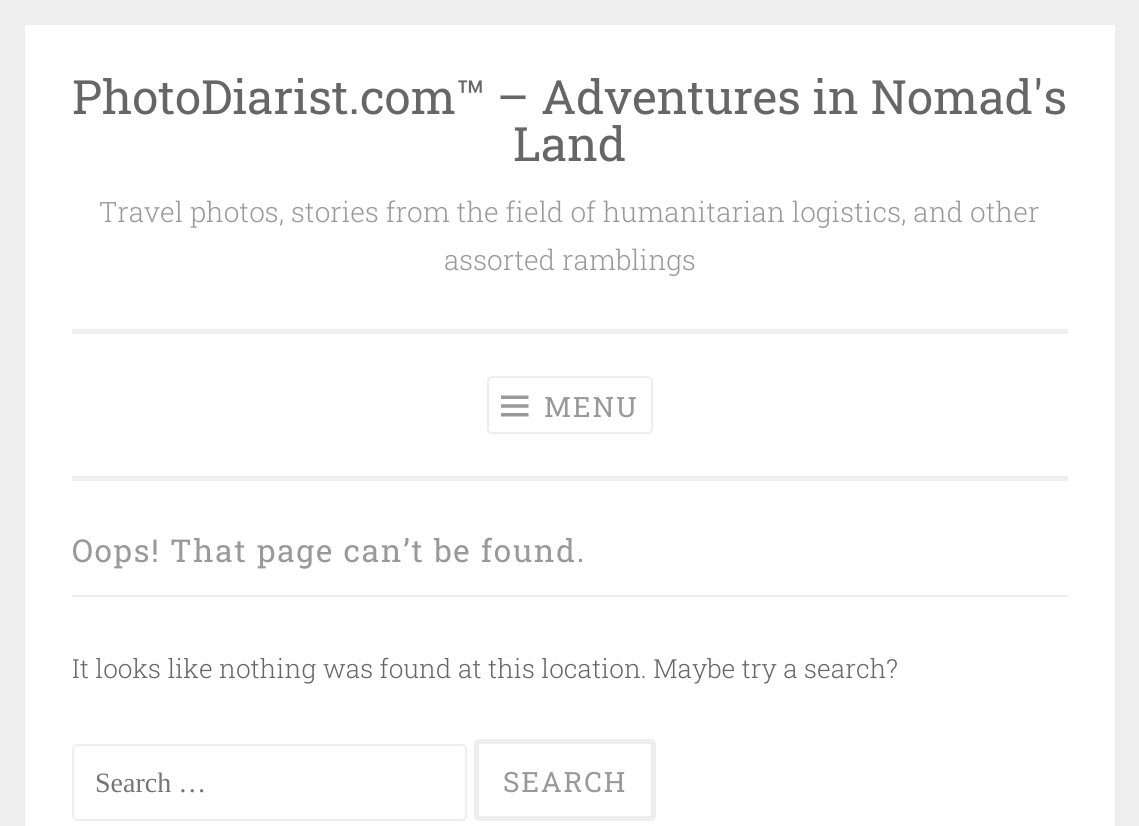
#include <cairo.h>
#include <math.h>
#include <stddef.h>


static void set_color(cairo_t *cr, unsigned color) {
    cairo_set_source_rgb(cr, (color >> 16) / 255.0, (color >> 8 & 255) / 255.0, (color & 255) / 255.0);
}

static void draw_text(cairo_t *cr, double x, double y, const char *s, const char *family, double size, int italic, int bold, unsigned color) {
    cairo_select_font_face(cr, family, italic ? CAIRO_FONT_SLANT_ITALIC : CAIRO_FONT_SLANT_NORMAL,
        bold ? CAIRO_FONT_WEIGHT_BOLD : CAIRO_FONT_WEIGHT_NORMAL);
    cairo_set_font_size(cr, size);
    set_color(cr, color);
    cairo_move_to(cr, x, y);
    cairo_show_text(cr, s);
}

static void draw_spaced(cairo_t *cr, double x, double y, const char *s, double letter, double word) {
    cairo_move_to(cr, x, y);
    while (*s) {
        char ch[5] = {0};
        int n = 0;
        do ch[n++] = *s++; while ((*s & 0xC0) == 0x80);
        cairo_show_text(cr, ch);
        cairo_rel_move_to(cr, letter + word * (*ch == ' '), 0);
    }
}

static void fill_rect(cairo_t *cr, double x, double y, double w, double h, unsigned color) {
    set_color(cr, color);
    cairo_rectangle(cr, x, y, w, h);
    cairo_fill(cr);
}

static void rounded_rect(cairo_t *cr, double x, double y, double w, double h, double r) {
    cairo_new_sub_path(cr);
    cairo_arc(cr, x + w - r, y + h - r, r, 0, M_PI / 2);
    cairo_arc(cr, x + r, y + h - r, r, M_PI / 2, M_PI);
    cairo_arc(cr, x + r, y + r, r, M_PI, 1.5 * M_PI);
    cairo_arc(cr, x + w - r, y + r, r, 1.5 * M_PI, 2 * M_PI);
    cairo_close_path(cr);
}

static void draw_image(cairo_t *cr, const char *path, double x, double y, double w, double h) {
    cairo_surface_t *image = cairo_image_surface_create_from_png(path);
    cairo_save(cr);
    cairo_set_source_surface(cr, image, x, y);
    cairo_rectangle(cr, x, y, w, h);
    cairo_fill(cr);
    cairo_restore(cr);
    cairo_surface_destroy(image);
}

int main(void) {
    cairo_surface_t *surface = cairo_image_surface_create(CAIRO_FORMAT_RGB24, 1139, 826);
    cairo_t *cr = cairo_create(surface);
    cairo_font_options_t *options = cairo_font_options_create();
    cairo_font_options_set_hint_metrics(options, CAIRO_HINT_METRICS_OFF);
    cairo_font_options_set_hint_style(options, CAIRO_HINT_STYLE_NONE);
    cairo_set_font_options(cr, options);
    cairo_set_miter_limit(cr, 4);
    set_color(cr, 0xEEEEEE);
    cairo_paint(cr);
    fill_rect(cr, 25, 25, 1090, 801, 0xFFFFFF);
    fill_rect(cr, 72, 476, 996, 5, 0xEEEEEE);
    draw_text(cr, 72, 114, "PhotoDiarist.com™ – Adventures in Nomad's", "Roboto Slab", 47.25, 0, 0, 0x666666);
    draw_text(cr, 513, 161, "Land", "Roboto Slab", 47.25, 0, 0, 0x666666);
    draw_text(cr, 99, 222, "Travel photos, stories from the field of humanitarian logistics, and other", "Roboto Slab Light", 28, 0, 0, 0x999999);
    draw_text(cr, 444, 270, "assorted ramblings", "Roboto Slab Light", 28, 0, 0, 0x999999);
    fill_rect(cr, 72, 329, 996, 5, 0xEEEEEE);
    rounded_rect(cr, 488, 377, 164, 56, 4);
    cairo_stroke(cr);
    draw_image(cr, "assets/img1.png", 501, 395, 28, 22);
    cairo_select_font_face(cr, "Roboto Slab", CAIRO_FONT_SLANT_NORMAL, CAIRO_FONT_WEIGHT_NORMAL);
    set_color(cr, 0x999999);
    draw_spaced(cr, 544, 417, "MENU", 1.75, 0);
    fill_rect(cr, 72, 595, 996, 2, 0xEEEEEE);
    cairo_set_font_size(cr, 31.5);
    set_color(cr, 0x999999);
    draw_spaced(cr, 72, 562, "Oops! That page can’t be found.", 1.75, 0);
    draw_text(cr, 72, 678, "It looks like nothing was found at this location. Maybe try a search?", "Roboto Slab Light", 26.25, 0, 0, 0x666666);
    rounded_rect(cr, 73, 745, 393, 75, 4);
    set_color(cr, 0xEEEEEE);
    cairo_stroke(cr);
    draw_text(cr, 95, 792, "Search …", "Liberation Serif", 28, 0, 0, 0x757575);
    rounded_rect(cr, 476.5, 741.5, 177, 77, 2.5);
    set_color(cr, 0xEEEEEE);
    cairo_set_line_width(cr, 5);
    cairo_stroke(cr);
    cairo_select_font_face(cr, "Roboto Slab", CAIRO_FONT_SLANT_NORMAL, CAIRO_FONT_WEIGHT_NORMAL);
    set_color(cr, 0x999999);
    draw_spaced(cr, 503, 792, "SEARCH", 1.75, 0);
    cairo_surface_write_to_png(surface, "output.png");
    cairo_font_options_destroy(options);
    cairo_destroy(cr);
    cairo_surface_destroy(surface);
    return 0;
}
